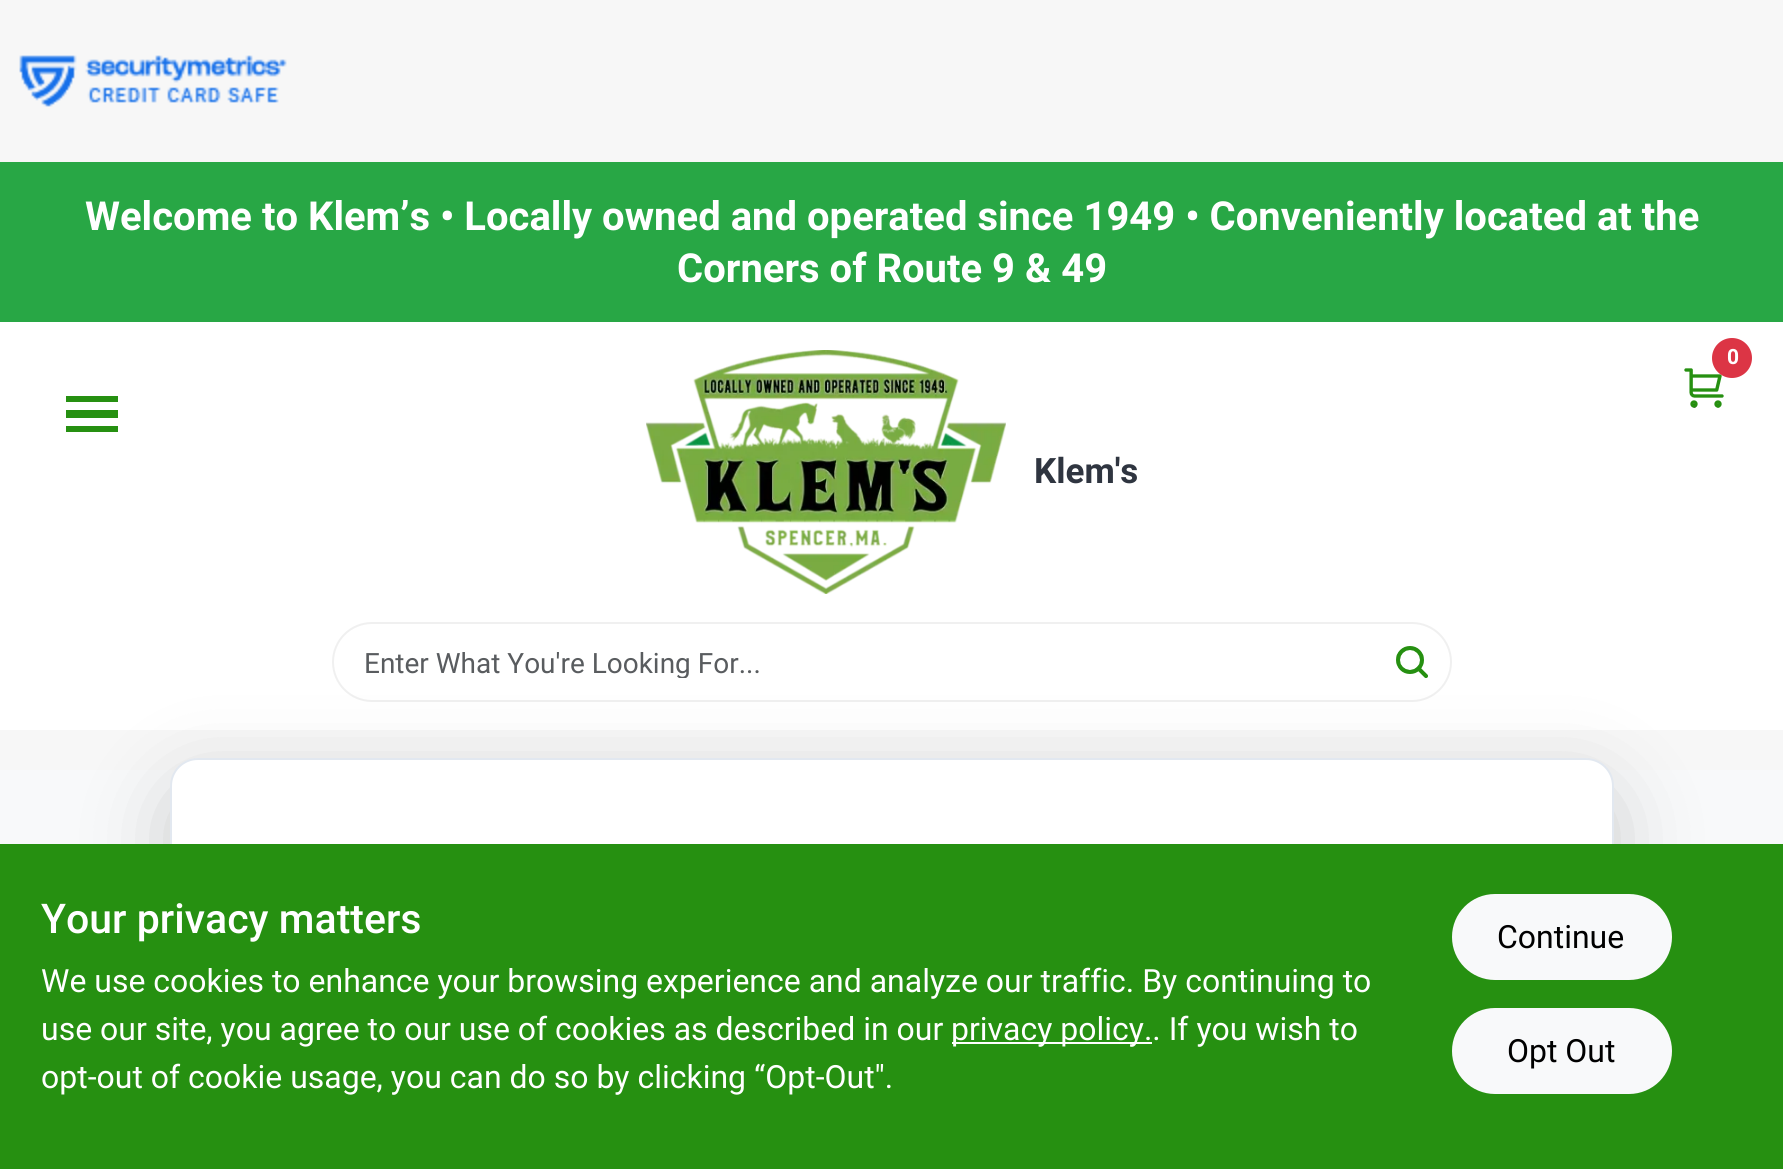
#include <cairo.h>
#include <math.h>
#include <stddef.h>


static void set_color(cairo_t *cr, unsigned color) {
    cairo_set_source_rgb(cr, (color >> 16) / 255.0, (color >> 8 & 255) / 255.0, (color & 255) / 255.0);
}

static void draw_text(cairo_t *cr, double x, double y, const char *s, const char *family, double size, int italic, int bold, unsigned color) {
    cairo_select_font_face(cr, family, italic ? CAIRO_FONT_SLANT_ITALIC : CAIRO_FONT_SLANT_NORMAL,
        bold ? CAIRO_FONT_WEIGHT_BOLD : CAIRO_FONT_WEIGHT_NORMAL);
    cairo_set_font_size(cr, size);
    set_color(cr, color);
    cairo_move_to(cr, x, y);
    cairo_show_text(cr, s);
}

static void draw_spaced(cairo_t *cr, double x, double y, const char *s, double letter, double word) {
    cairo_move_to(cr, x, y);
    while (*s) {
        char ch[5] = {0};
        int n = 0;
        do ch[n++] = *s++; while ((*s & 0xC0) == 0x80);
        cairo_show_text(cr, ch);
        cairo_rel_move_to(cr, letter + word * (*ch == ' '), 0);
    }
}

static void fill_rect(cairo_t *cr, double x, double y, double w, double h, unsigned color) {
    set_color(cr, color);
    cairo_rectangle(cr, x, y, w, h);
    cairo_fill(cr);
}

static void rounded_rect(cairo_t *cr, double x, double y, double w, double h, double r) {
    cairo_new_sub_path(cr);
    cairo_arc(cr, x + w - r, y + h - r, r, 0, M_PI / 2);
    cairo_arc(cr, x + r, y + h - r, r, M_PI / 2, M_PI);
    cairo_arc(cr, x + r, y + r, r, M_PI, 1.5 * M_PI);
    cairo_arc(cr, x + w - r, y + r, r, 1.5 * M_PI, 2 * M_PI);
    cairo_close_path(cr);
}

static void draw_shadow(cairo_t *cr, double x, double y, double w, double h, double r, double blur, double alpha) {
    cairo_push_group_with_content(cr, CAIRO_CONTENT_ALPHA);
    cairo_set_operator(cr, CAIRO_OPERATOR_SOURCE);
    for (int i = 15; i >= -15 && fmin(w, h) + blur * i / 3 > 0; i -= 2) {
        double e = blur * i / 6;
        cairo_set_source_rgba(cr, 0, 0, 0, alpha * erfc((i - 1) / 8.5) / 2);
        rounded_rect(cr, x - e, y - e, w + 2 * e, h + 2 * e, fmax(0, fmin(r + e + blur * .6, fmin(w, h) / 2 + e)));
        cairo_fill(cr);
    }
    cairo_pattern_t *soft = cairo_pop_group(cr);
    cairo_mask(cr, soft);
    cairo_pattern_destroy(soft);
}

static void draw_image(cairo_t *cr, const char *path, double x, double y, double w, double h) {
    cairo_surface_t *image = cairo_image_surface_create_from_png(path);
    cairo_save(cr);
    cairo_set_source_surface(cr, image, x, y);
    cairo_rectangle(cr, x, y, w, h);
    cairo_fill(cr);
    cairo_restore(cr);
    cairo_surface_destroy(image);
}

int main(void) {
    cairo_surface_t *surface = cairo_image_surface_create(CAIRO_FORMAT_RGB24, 1783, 1169);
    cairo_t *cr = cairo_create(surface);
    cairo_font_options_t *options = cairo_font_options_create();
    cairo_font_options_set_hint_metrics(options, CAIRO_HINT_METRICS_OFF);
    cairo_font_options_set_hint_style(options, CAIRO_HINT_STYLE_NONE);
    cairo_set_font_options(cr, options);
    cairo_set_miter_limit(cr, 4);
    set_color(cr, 0xF7F7F7);
    cairo_paint(cr);
    draw_image(cr, "assets/img1.png", 19, 55, 268, 52);
    fill_rect(cr, 0, 162, 1783, 160, 0x28A745);
    draw_text(cr, 85, 230, "Welcome to Klem’s • Locally owned and operated since 1949 • Conveniently located at the", "Roboto", 40, 0, 1, 0xFFFFFF);
    draw_text(cr, 677, 282, "Corners of Route 9 & 49", "Roboto", 40, 0, 1, 0xFFFFFF);
    fill_rect(cr, 0, 322, 1783, 408, 0xFFFFFF);
    draw_image(cr, "assets/img2.png", 1684, 368, 40, 40);
    set_color(cr, 0xDC3545);
    cairo_arc(cr, 1732, 358, 20, 0, 2 * M_PI);
    cairo_fill(cr);
    cairo_set_font_size(cr, 21);
    set_color(cr, 0xFFFFFF);
    draw_spaced(cr, 1727, 364, "0", -2, 0);
    fill_rect(cr, 66, 396, 52, 6, 0x269011);
    fill_rect(cr, 66, 410, 52, 8, 0x269011);
    fill_rect(cr, 66, 426, 52, 6, 0x269011);
    draw_image(cr, "assets/img3.png", 646, 350, 360, 244);
    draw_text(cr, 1034, 483, "Klem's", "Roboto", 35, 0, 1, 0x2F3540);
    rounded_rect(cr, 333, 623, 1118, 78, 39);
    set_color(cr, 0xF0F0F0);
    cairo_stroke(cr);
    cairo_save(cr);
    cairo_rectangle(cr, 364, 646, 1056, 32);
    cairo_clip(cr);
    draw_text(cr, 364, 673, "Enter What You're Looking For...", "Roboto", 28, 0, 0, 0x595C5F);
    cairo_restore(cr);
    draw_image(cr, "assets/img4.png", 1396, 646, 32, 32);
    fill_rect(cr, 0, 770, 1783, 74, 0xF8F9FA);
    set_color(cr, 0x000000);
    draw_shadow(cr, 170, 786, 1444, 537, 28, 42, 0.18);
    set_color(cr, 0xFFFFFF);
    rounded_rect(cr, 171, 759, 1442, 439, 27);
    cairo_fill_preserve(cr);
    set_color(cr, 0xE2E8F0);
    cairo_stroke(cr);
    fill_rect(cr, 0, 844, 1783, 325, 0x269011);
    draw_text(cr, 41, 933, "Your privacy matters", "Roboto Medium", 41, 0, 0, 0xFFFFFF);
    draw_text(cr, 41, 992, "We use cookies to enhance your browsing experience and analyze our traffic. By continuing to", "Roboto", 32, 0, 0, 0xFFFFFF);
    draw_text(cr, 41, 1040, "use our site, you agree to our use of cookies as described in our", "Roboto", 32, 0, 0, 0xFFFFFF);
    fill_rect(cr, 952, 1042, 200, 2, 0xFFFFFF);
    draw_text(cr, 951, 1040, "privacy policy.. If you wish to", "Roboto", 32, 0, 0, 0xFFFFFF);
    draw_text(cr, 41, 1088, "opt-out of cookie usage, you can do so by clicking “Opt-Out\".", "Roboto", 32, 0, 0, 0xFFFFFF);
    set_color(cr, 0xF8F9FA);
    rounded_rect(cr, 1453, 895, 218, 84, 42);
    cairo_fill_preserve(cr);
    cairo_stroke(cr);
    draw_text(cr, 1497, 948, "Continue", "Roboto", 32, 0, 0, 0x000000);
    set_color(cr, 0xF8F9FA);
    rounded_rect(cr, 1453, 1009, 218, 84, 42);
    cairo_fill_preserve(cr);
    cairo_stroke(cr);
    draw_text(cr, 1507, 1062, "Opt Out", "Roboto", 32, 0, 0, 0x000000);
    cairo_surface_write_to_png(surface, "output.png");
    cairo_font_options_destroy(options);
    cairo_destroy(cr);
    cairo_surface_destroy(surface);
    return 0;
}
